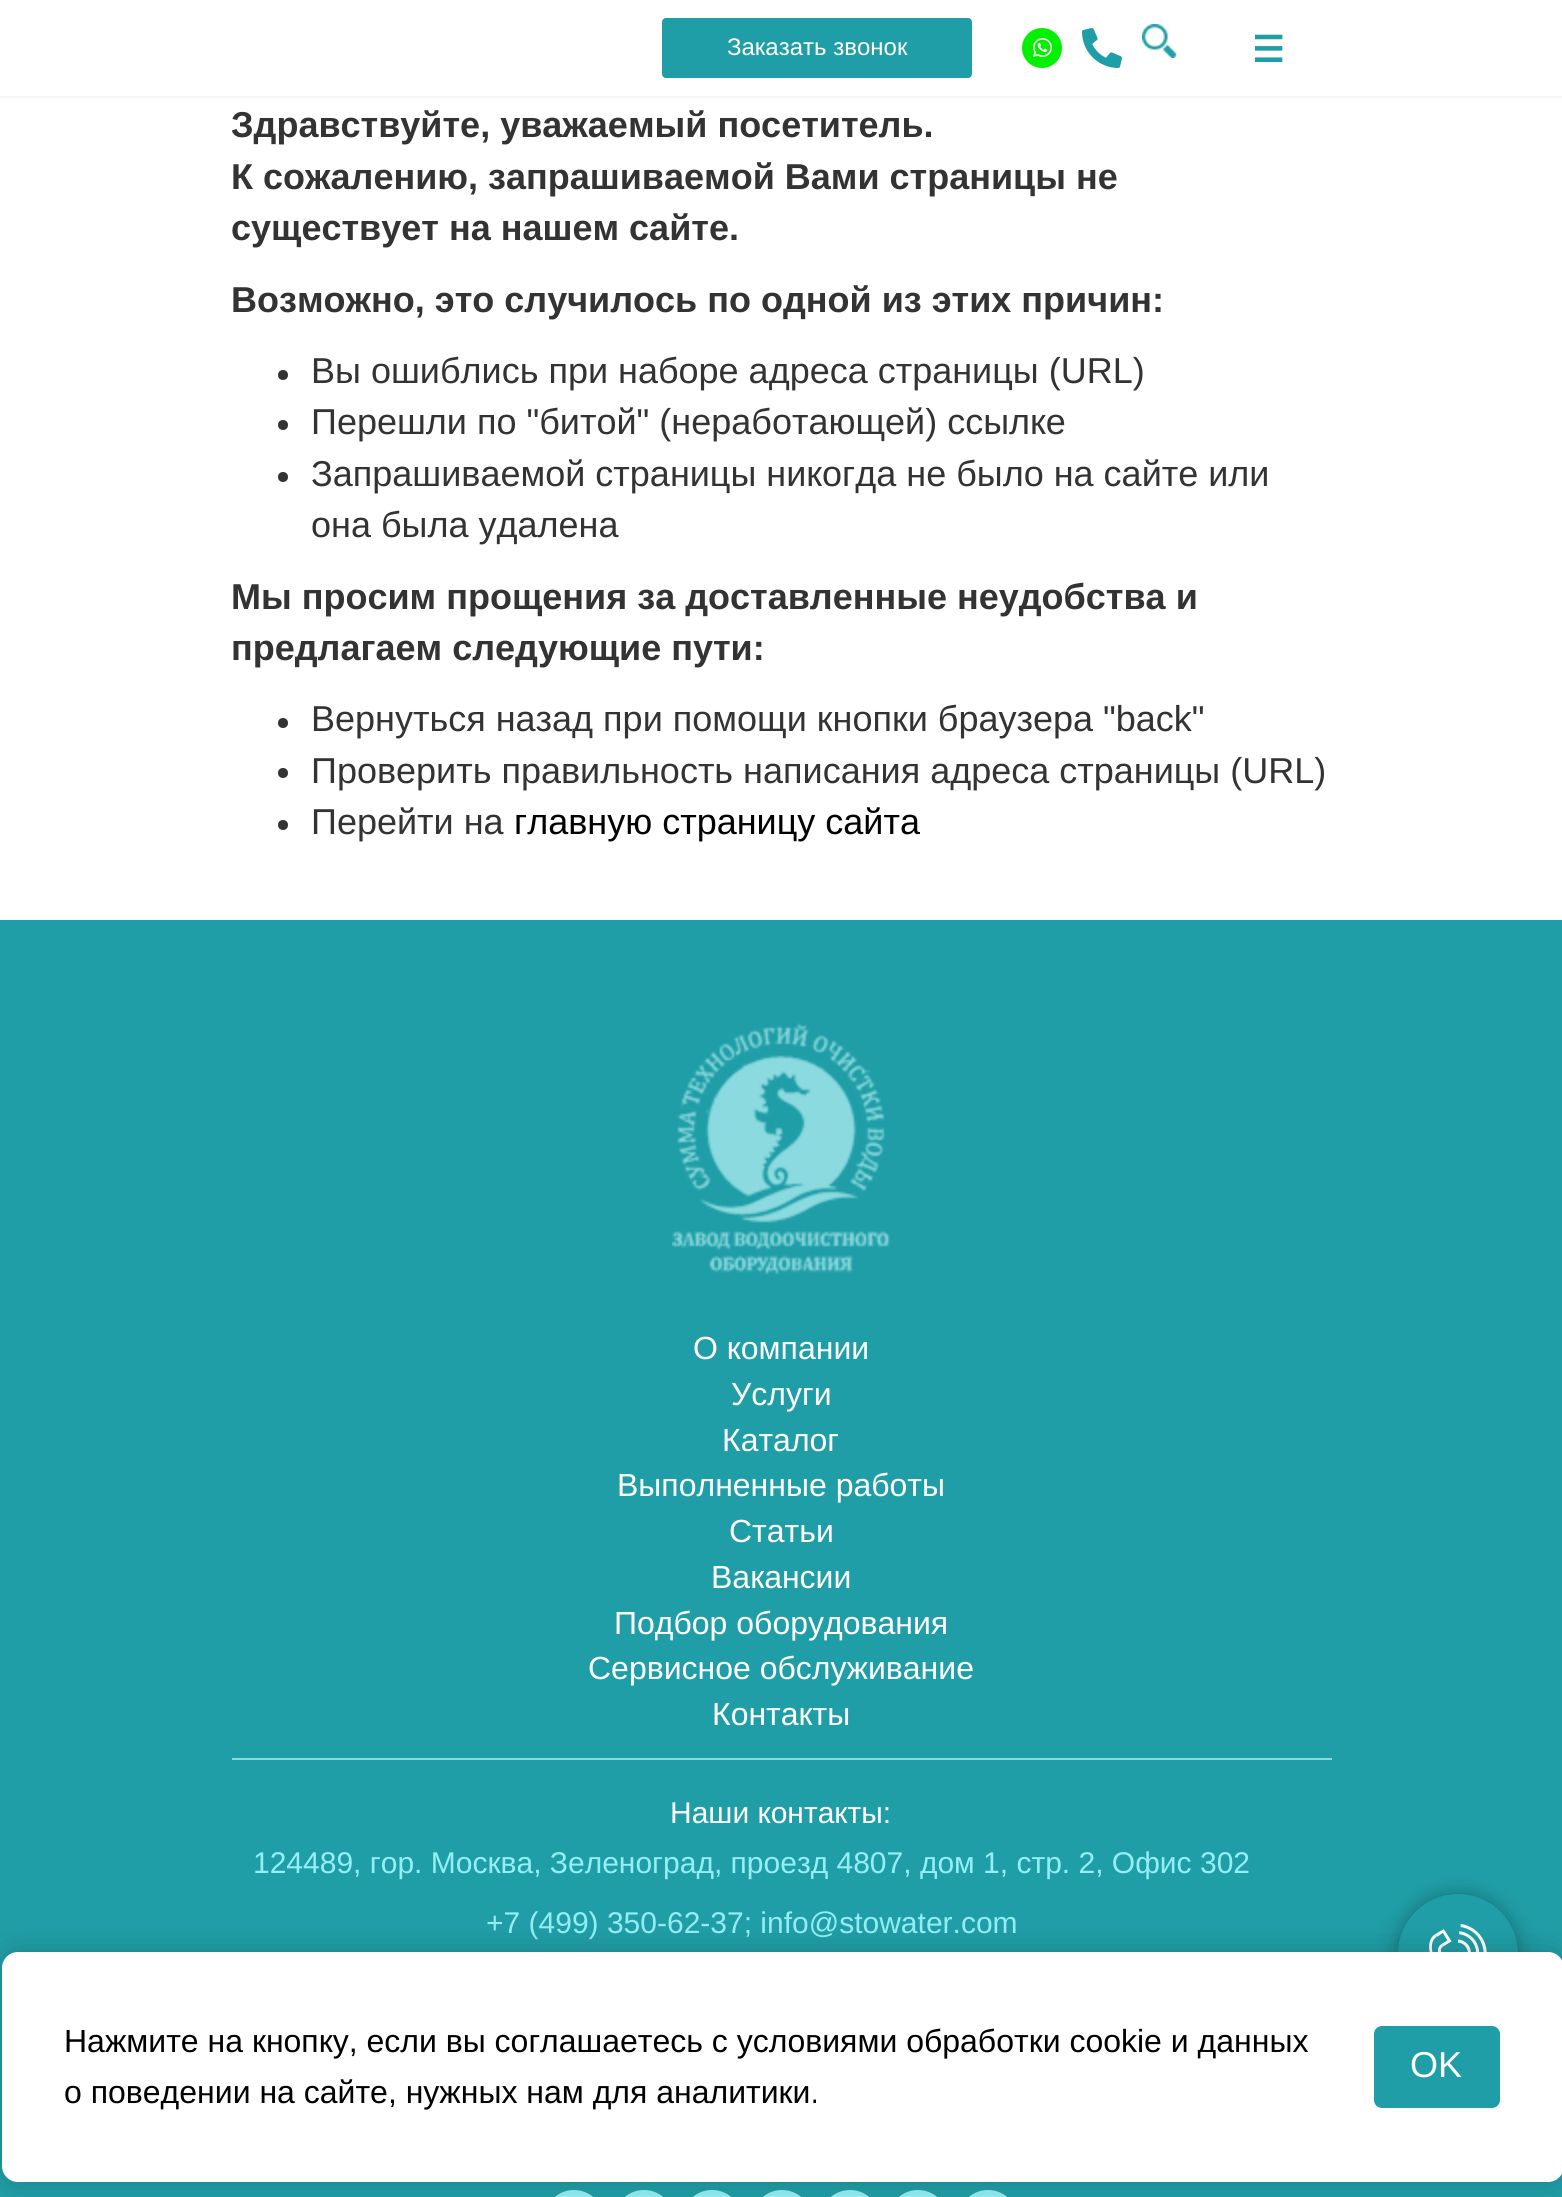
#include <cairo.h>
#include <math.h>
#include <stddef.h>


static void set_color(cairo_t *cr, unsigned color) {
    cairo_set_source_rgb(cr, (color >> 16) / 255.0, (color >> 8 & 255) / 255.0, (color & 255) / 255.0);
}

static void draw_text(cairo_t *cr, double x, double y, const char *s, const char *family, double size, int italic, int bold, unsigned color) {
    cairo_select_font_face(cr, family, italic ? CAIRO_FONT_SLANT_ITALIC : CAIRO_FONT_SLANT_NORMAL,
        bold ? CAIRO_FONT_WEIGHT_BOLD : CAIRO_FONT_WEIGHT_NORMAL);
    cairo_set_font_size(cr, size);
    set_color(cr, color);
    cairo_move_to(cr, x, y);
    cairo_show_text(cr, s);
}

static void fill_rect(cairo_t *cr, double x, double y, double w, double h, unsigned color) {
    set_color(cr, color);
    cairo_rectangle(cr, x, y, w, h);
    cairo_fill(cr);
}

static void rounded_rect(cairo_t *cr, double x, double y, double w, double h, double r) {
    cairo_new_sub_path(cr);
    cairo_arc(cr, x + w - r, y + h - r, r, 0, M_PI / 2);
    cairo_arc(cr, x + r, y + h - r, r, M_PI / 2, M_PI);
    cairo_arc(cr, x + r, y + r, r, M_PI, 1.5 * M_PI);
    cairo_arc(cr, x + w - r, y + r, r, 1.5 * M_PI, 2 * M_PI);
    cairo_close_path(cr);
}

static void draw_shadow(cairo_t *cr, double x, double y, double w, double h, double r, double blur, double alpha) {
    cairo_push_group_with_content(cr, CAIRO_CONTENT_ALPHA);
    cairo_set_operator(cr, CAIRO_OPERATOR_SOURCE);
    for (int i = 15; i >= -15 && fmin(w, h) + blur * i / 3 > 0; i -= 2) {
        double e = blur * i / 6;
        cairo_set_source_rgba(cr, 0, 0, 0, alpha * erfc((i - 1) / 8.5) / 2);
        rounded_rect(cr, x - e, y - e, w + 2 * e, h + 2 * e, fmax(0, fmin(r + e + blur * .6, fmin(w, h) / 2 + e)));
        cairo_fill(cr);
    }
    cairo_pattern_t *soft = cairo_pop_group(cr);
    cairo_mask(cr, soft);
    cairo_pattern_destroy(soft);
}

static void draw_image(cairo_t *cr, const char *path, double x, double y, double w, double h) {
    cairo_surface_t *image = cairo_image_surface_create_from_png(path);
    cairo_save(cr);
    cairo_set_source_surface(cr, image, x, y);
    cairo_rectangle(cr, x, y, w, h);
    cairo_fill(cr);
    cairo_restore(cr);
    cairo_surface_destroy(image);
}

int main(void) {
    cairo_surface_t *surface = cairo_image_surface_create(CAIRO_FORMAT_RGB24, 1562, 2197);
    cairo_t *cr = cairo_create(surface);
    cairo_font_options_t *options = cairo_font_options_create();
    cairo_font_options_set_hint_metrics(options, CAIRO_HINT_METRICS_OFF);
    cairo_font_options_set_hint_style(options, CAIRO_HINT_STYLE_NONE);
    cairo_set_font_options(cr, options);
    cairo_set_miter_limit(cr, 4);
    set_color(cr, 0xFFFFFF);
    cairo_paint(cr);
    fill_rect(cr, 0, 96, 1562, 2, 0xF5F5F5);
    set_color(cr, 0x209EA7);
    rounded_rect(cr, 662, 18, 310, 60, 4);
    cairo_fill(cr);
    draw_text(cr, 727, 55, "Заказать звонок", "Liberation Sans", 24, 0, 0, 0xFFFFFF);
    draw_image(cr, "assets/img1.png", 1022, 28, 40, 40);
    draw_image(cr, "assets/img2.png", 1082, 28, 40, 40);
    draw_image(cr, "assets/img3.png", 1142, 24, 35, 34);
    draw_text(cr, 1252, 62, "☰", "DejaVu Sans", 36, 0, 1, 0x209EA7);
    draw_text(cr, 231, 137, "Здравствуйте, уважаемый посетитель.", "Liberation Sans", 36, 0, 1, 0x333333);
    draw_text(cr, 231, 189, "К сожалению, запрашиваемой Вами страницы не", "Liberation Sans", 36, 0, 1, 0x333333);
    draw_text(cr, 231, 240, "существует на нашем сайте.", "Liberation Sans", 36, 0, 1, 0x333333);
    draw_text(cr, 231, 312, "Возможно, это случилось по одной из этих причин:", "Liberation Sans", 36, 0, 1, 0x333333);
    cairo_new_path(cr);
    cairo_arc(cr, 283, 375, 5, 0, 2 * M_PI);
    cairo_fill(cr);
    draw_text(cr, 311, 383, "Вы ошиблись при наборе адреса страницы (URL)", "Liberation Sans", 36, 0, 0, 0x333333);
    cairo_new_path(cr);
    cairo_arc(cr, 283, 425, 5, 0, 2 * M_PI);
    cairo_fill(cr);
    draw_text(cr, 311, 434, "Перешли по \"битой\" (неработающей) ссылке", "Liberation Sans", 36, 0, 0, 0x333333);
    cairo_new_path(cr);
    cairo_arc(cr, 283, 477, 5, 0, 2 * M_PI);
    cairo_fill(cr);
    draw_text(cr, 311, 486, "Запрашиваемой страницы никогда не было на сайте или", "Liberation Sans", 36, 0, 0, 0x333333);
    draw_text(cr, 311, 537, "она была удалена", "Liberation Sans", 36, 0, 0, 0x333333);
    draw_text(cr, 231, 609, "Мы просим прощения за доставленные неудобства и", "Liberation Sans", 36, 0, 1, 0x333333);
    draw_text(cr, 231, 660, "предлагаем следующие пути:", "Liberation Sans", 36, 0, 1, 0x333333);
    cairo_new_path(cr);
    cairo_arc(cr, 283, 723, 5, 0, 2 * M_PI);
    cairo_fill(cr);
    draw_text(cr, 311, 731, "Вернуться назад при помощи кнопки браузера \"back\"", "Liberation Sans", 36, 0, 0, 0x333333);
    cairo_new_path(cr);
    cairo_arc(cr, 283, 773, 5, 0, 2 * M_PI);
    cairo_fill(cr);
    draw_text(cr, 311, 783, "Проверить правильность написания адреса страницы (URL)", "Liberation Sans", 36, 0, 0, 0x333333);
    cairo_new_path(cr);
    cairo_arc(cr, 283, 825, 5, 0, 2 * M_PI);
    cairo_fill(cr);
    draw_text(cr, 311, 834, "Перейти на", "Liberation Sans", 36, 0, 0, 0x333333);
    draw_text(cr, 514, 834, "главную страницу сайта", "Liberation Sans", 36, 0, 0, 0x000000);
    fill_rect(cr, 0, 920, 1562, 1277, 0x209EA7);
    draw_image(cr, "assets/img4.png", 672, 1023, 218, 251);
    fill_rect(cr, 232, 1758, 1100, 2, 0x8ADADF);
    draw_text(cr, 693, 1359, "О компании", "Liberation Sans", 32, 0, 0, 0xFFFFFF);
    draw_text(cr, 731, 1405, "Услуги", "Liberation Sans", 32, 0, 0, 0xFFFFFF);
    draw_text(cr, 722, 1451, "Каталог", "Liberation Sans", 32, 0, 0, 0xFFFFFF);
    draw_text(cr, 617, 1496, "Выполненные работы", "Liberation Sans", 32, 0, 0, 0xFFFFFF);
    draw_text(cr, 729, 1542, "Статьи", "Liberation Sans", 32, 0, 0, 0xFFFFFF);
    draw_text(cr, 711, 1588, "Вакансии", "Liberation Sans", 32, 0, 0, 0xFFFFFF);
    draw_text(cr, 614, 1634, "Подбор оборудования", "Liberation Sans", 32, 0, 0, 0xFFFFFF);
    draw_text(cr, 588, 1679, "Сервисное обслуживание", "Liberation Sans", 32, 0, 0, 0xFFFFFF);
    draw_text(cr, 712, 1725, "Контакты", "Liberation Sans", 32, 0, 0, 0xFFFFFF);
    draw_text(cr, 670, 1823, "Наши контакты:", "Liberation Sans", 30, 0, 0, 0xFFFFFF);
    draw_text(cr, 253, 1873, "124489, гор. Москва, Зеленоград, проезд 4807, дом 1, стр. 2, Офис 302", "Liberation Sans", 30, 0, 0, 0x93EFF5);
    draw_text(cr, 486, 1933, "+7 (499) 350-62-37; info@stowater.com", "Liberation Sans", 30, 0, 0, 0x93EFF5);
    rounded_rect(cr, 544, 2190, 60, 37, 30);
    cairo_fill(cr);
    rounded_rect(cr, 614, 2190, 60, 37, 30);
    cairo_fill(cr);
    rounded_rect(cr, 682, 2190, 60, 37, 30);
    cairo_fill(cr);
    rounded_rect(cr, 752, 2190, 60, 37, 30);
    cairo_fill(cr);
    rounded_rect(cr, 820, 2190, 60, 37, 30);
    cairo_fill(cr);
    rounded_rect(cr, 888, 2190, 60, 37, 30);
    cairo_fill(cr);
    rounded_rect(cr, 958, 2190, 60, 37, 30);
    cairo_fill(cr);
    set_color(cr, 0x000000);
    draw_shadow(cr, 1398, 1894, 120, 120, 60, 10, 0.3);
    set_color(cr, 0x209EA7);
    cairo_arc(cr, 1458, 1954, 60, 0, 2 * M_PI);
    cairo_fill(cr);
    draw_image(cr, "assets/img5.png", 1429, 1924, 58, 28);
    set_color(cr, 0x000000);
    draw_shadow(cr, 2, 1952, 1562, 230, 16, 16, 0.2);
    set_color(cr, 0xFFFFFF);
    rounded_rect(cr, 2, 1952, 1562, 230, 16);
    cairo_fill(cr);
    draw_text(cr, 64, 2052, "Нажмите на кнопку, если вы соглашаетесь с условиями обработки cookie и данных", "Liberation Sans", 32, 0, 0, 0x000000);
    draw_text(cr, 64, 2103, "о поведении на сайте, нужных нам для аналитики.", "Liberation Sans", 32, 0, 0, 0x000000);
    set_color(cr, 0x209EA7);
    rounded_rect(cr, 1374, 2026, 126, 82, 8);
    cairo_fill(cr);
    draw_text(cr, 1410, 2077, "OK", "Liberation Sans", 36, 0, 0, 0xFFFFFF);
    cairo_surface_write_to_png(surface, "output.png");
    cairo_font_options_destroy(options);
    cairo_destroy(cr);
    cairo_surface_destroy(surface);
    return 0;
}
